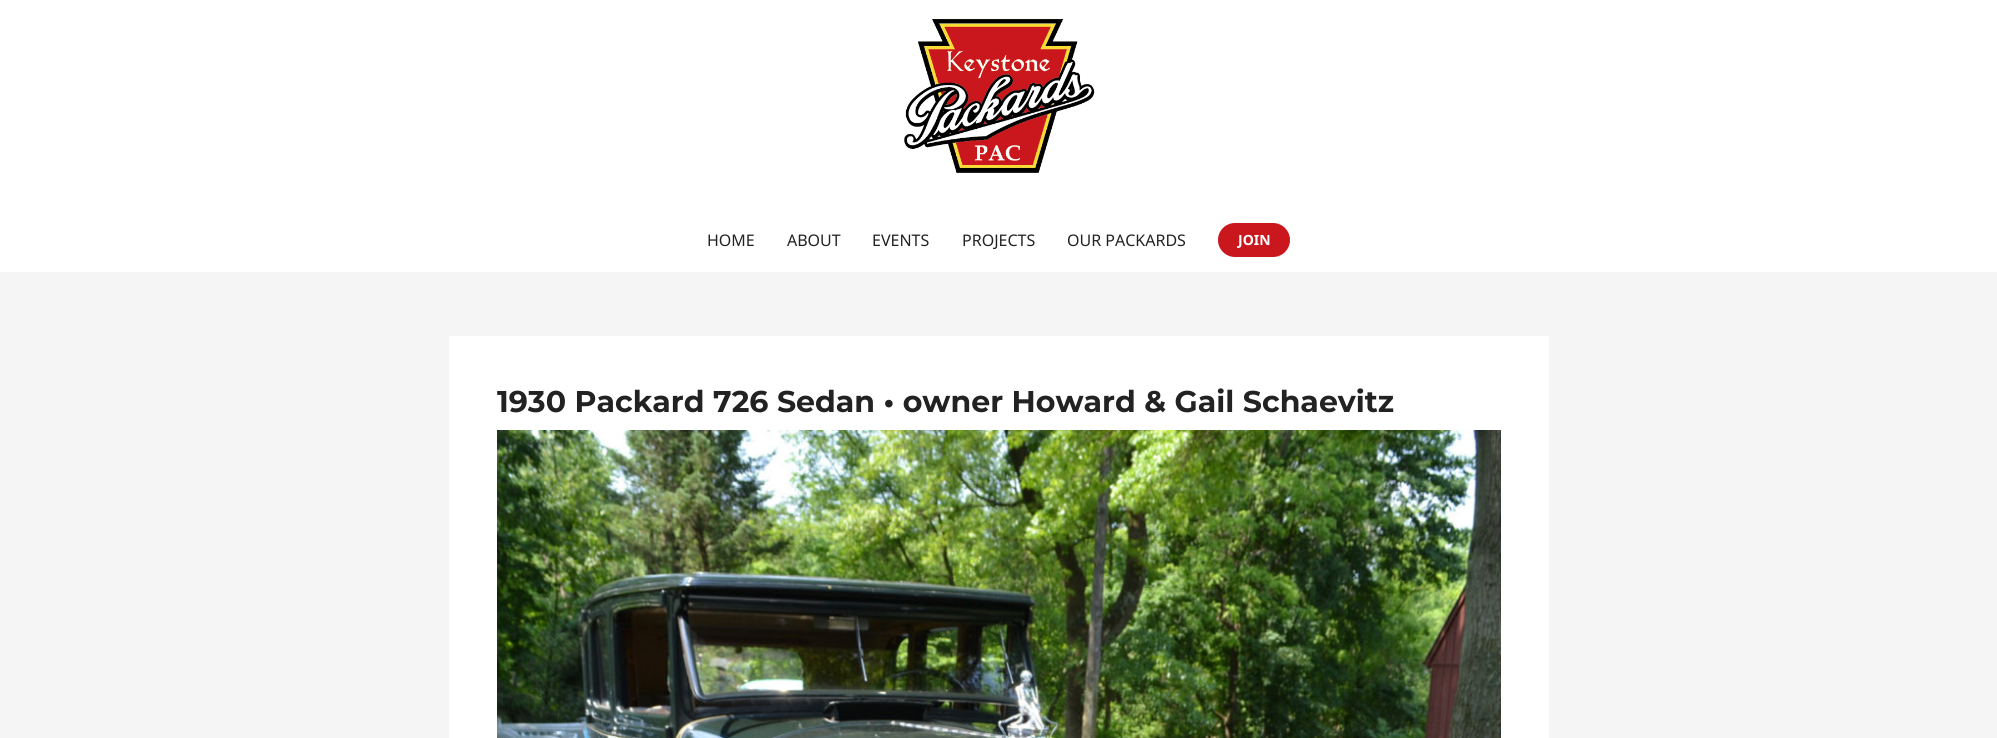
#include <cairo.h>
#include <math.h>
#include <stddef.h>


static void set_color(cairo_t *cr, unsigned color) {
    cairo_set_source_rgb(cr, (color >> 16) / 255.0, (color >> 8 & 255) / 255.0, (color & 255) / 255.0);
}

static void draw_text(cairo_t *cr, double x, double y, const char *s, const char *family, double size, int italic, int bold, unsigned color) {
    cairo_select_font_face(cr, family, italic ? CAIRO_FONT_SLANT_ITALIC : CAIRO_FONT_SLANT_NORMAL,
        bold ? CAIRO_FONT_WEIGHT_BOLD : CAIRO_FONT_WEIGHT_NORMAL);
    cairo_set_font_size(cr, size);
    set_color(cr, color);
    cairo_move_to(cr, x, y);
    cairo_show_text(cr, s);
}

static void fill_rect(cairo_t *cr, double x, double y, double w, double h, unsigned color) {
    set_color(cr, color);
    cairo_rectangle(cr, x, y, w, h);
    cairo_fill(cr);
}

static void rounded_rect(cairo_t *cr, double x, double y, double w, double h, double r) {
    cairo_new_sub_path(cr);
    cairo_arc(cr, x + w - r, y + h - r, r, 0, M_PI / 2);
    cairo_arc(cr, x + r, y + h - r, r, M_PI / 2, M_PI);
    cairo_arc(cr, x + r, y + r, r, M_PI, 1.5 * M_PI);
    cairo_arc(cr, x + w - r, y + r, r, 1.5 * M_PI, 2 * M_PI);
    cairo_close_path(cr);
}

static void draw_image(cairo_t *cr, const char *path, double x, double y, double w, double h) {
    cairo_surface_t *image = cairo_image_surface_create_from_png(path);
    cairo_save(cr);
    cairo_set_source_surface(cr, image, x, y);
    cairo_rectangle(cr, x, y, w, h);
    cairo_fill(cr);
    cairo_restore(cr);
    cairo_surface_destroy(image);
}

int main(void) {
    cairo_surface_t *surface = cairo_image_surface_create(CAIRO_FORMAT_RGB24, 1997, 738);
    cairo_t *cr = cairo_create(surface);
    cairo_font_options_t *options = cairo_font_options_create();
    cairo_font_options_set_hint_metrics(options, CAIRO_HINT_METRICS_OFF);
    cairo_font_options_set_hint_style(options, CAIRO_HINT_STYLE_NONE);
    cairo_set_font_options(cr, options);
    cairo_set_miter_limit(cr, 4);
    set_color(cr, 0xF5F5F5);
    cairo_paint(cr);
    fill_rect(cr, 0, 0, 1997, 272, 0xFFFFFF);
    draw_image(cr, "assets/img1.png", 904, 19, 191, 154);
    draw_text(cr, 707, 246, "HOME", "Noto Sans", 16, 0, 0, 0x222222);
    draw_text(cr, 787, 246, "ABOUT", "Noto Sans", 16, 0, 0, 0x222222);
    draw_text(cr, 872, 246, "EVENTS", "Noto Sans", 16, 0, 0, 0x222222);
    draw_text(cr, 962, 246, "PROJECTS", "Noto Sans", 16, 0, 0, 0x222222);
    draw_text(cr, 1067, 246, "OUR PACKARDS", "Noto Sans", 16, 0, 0, 0x222222);
    set_color(cr, 0xCA171E);
    rounded_rect(cr, 1218, 223, 72, 34, 17);
    cairo_fill(cr);
    draw_text(cr, 1238, 245, "JOIN", "Noto Sans", 14, 0, 1, 0xFFFFFF);
    fill_rect(cr, 449, 336, 1100, 402, 0xFFFFFF);
    draw_text(cr, 497, 412, "1930 Packard 726 Sedan • owner Howard & Gail Schaevitz", "Montserrat Thin", 30, 0, 0, 0x222222);
    draw_image(cr, "assets/img2.png", 497, 430, 1004, 308);
    cairo_surface_write_to_png(surface, "output.png");
    cairo_font_options_destroy(options);
    cairo_destroy(cr);
    cairo_surface_destroy(surface);
    return 0;
}
